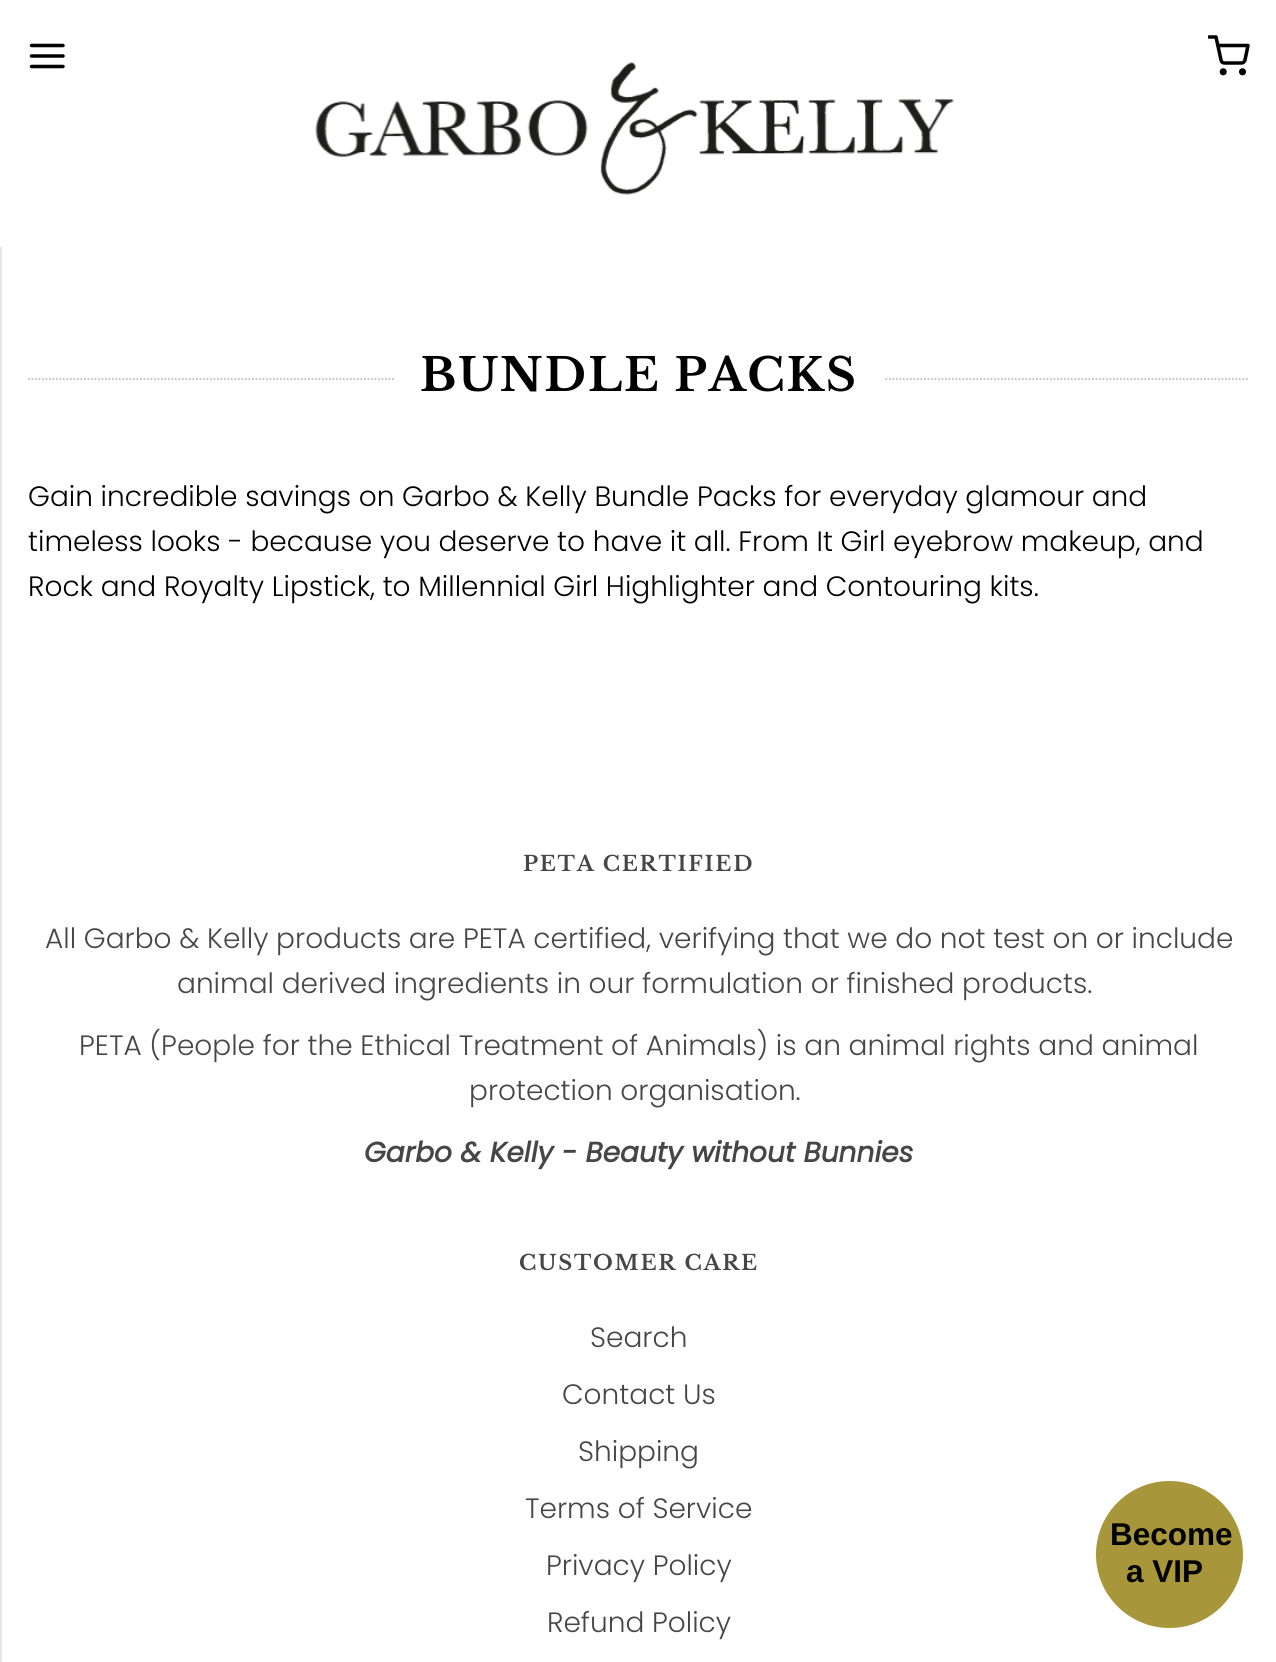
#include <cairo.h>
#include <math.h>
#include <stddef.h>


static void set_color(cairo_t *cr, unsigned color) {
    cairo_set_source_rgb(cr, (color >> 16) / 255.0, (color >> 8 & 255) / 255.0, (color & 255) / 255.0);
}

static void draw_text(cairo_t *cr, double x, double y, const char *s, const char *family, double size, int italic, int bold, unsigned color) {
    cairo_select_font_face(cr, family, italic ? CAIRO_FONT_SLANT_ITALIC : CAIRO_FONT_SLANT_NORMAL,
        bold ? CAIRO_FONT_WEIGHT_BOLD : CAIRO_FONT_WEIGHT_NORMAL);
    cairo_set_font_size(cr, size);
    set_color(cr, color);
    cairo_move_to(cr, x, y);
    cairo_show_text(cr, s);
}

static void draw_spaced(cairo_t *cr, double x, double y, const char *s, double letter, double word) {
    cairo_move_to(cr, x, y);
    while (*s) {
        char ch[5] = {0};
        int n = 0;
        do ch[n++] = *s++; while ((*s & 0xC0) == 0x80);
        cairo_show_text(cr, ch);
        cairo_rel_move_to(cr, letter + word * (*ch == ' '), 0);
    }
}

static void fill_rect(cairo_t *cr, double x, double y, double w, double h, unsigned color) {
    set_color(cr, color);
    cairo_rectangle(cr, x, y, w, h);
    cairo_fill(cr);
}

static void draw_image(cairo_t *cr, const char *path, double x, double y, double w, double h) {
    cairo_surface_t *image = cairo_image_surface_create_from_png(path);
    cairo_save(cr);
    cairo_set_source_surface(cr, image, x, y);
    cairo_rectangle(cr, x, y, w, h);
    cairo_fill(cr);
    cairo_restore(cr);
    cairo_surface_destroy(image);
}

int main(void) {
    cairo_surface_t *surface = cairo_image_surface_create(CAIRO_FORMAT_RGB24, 1276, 1662);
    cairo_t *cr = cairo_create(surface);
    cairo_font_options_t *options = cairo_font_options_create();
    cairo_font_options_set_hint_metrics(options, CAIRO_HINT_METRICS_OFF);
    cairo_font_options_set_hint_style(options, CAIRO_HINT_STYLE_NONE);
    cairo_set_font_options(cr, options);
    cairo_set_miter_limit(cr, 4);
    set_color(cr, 0xFFFFFF);
    cairo_paint(cr);
    fill_rect(cr, 0, 247, 2, 1415, 0xE6E6E6);
    cairo_new_path(cr);
    cairo_move_to(cr, 31.5, 56);
    cairo_line_to(cr, 63, 56);
    cairo_move_to(cr, 31.5, 45.5);
    cairo_line_to(cr, 63, 45.5);
    cairo_move_to(cr, 31.5, 66.5);
    cairo_line_to(cr, 63, 66.5);
    set_color(cr, 0x000000);
    cairo_set_line_width(cr, 3.5);
    cairo_set_line_cap(cr, CAIRO_LINE_CAP_ROUND);
    cairo_set_line_join(cr, CAIRO_LINE_JOIN_ROUND);
    cairo_stroke(cr);
    cairo_save(cr);
    cairo_rectangle(cr, 1208, 35, 42, 42);
    cairo_clip(cr);
    cairo_new_path(cr);
    cairo_move_to(cr, 1209, 37);
    cairo_line_to(cr, 1216, 37);
    cairo_line_to(cr, 1221, 60);
    cairo_curve_to(cr, 1221.5, 62, 1222.5, 63, 1224.5, 63);
    cairo_line_to(cr, 1241.5, 63);
    cairo_curve_to(cr, 1243, 63, 1244.5, 62, 1245, 60);
    cairo_line_to(cr, 1248, 45.5);
    cairo_line_to(cr, 1218, 45.5);
    cairo_stroke(cr);
    cairo_restore(cr);
    cairo_arc(cr, 1223.2, 71.8, 1.8, 0, 2 * M_PI);
    cairo_set_line_cap(cr, CAIRO_LINE_CAP_BUTT);
    cairo_set_line_join(cr, CAIRO_LINE_JOIN_MITER);
    cairo_stroke(cr);
    cairo_arc(cr, 1242.5, 71.8, 1.8, 0, 2 * M_PI);
    cairo_stroke(cr);
    draw_image(cr, "assets/img1.png", 315, 62, 640, 133);
    cairo_new_path(cr);
    cairo_move_to(cr, 28, 379);
    cairo_line_to(cr, 1249.5, 379);
    set_color(cr, 0xBFBFBF);
    cairo_set_line_width(cr, 1.8);
    cairo_set_dash(cr, (double[]){1.75, 1.75}, 2, 0);
    cairo_stroke(cr);
    fill_rect(cr, 395, 378, 489, 2, 0xFFFFFF);
    cairo_select_font_face(cr, "Libre Baskerville", CAIRO_FONT_SLANT_NORMAL, CAIRO_FONT_WEIGHT_BOLD);
    cairo_set_font_size(cr, 45.5);
    set_color(cr, 0x000000);
    draw_spaced(cr, 420, 391, "BUNDLE PACKS", 1.75, 0);
    draw_text(cr, 28, 506, "Gain incredible savings on Garbo & Kelly Bundle Packs for everyday glamour and", "Poppins Light", 28, 0, 0, 0x000000);
    draw_text(cr, 28, 551, "timeless looks - because you deserve to have it all. From It Girl eyebrow makeup, and", "Poppins Light", 28, 0, 0, 0x000000);
    draw_text(cr, 28, 596, "Rock and Royalty Lipstick, to Millennial Girl Highlighter and Contouring kits.", "Poppins Light", 28, 0, 0, 0x000000);
    cairo_select_font_face(cr, "Libre Baskerville", CAIRO_FONT_SLANT_NORMAL, CAIRO_FONT_WEIGHT_BOLD);
    cairo_set_font_size(cr, 21);
    set_color(cr, 0x464646);
    draw_spaced(cr, 523, 871, "PETA CERTIFIED", 1.75, 0);
    draw_text(cr, 45, 948, "All Garbo & Kelly products are PETA certified, verifying that we do not test on or include", "Poppins Light", 28, 0, 0, 0x464646);
    draw_text(cr, 177, 993, "animal derived ingredients in our formulation or finished products.", "Poppins Light", 28, 0, 0, 0x464646);
    draw_text(cr, 79, 1055, "PETA (People for the Ethical Treatment of Animals) is an animal rights and animal", "Poppins Light", 28, 0, 0, 0x464646);
    draw_text(cr, 469, 1100, "protection organisation.", "Poppins Light", 28, 0, 0, 0x464646);
    draw_text(cr, 364, 1162, "Garbo & Kelly - Beauty without Bunnies", "Poppins", 28, 1, 1, 0x464646);
    cairo_select_font_face(cr, "Libre Baskerville", CAIRO_FONT_SLANT_NORMAL, CAIRO_FONT_WEIGHT_BOLD);
    cairo_set_font_size(cr, 21);
    draw_spaced(cr, 519, 1270, "CUSTOMER CARE", 1.75, 0);
    draw_text(cr, 590, 1347, "Search", "Poppins Light", 28, 0, 0, 0x464646);
    draw_text(cr, 562, 1404, "Contact Us", "Poppins Light", 28, 0, 0, 0x464646);
    draw_text(cr, 578, 1461, "Shipping", "Poppins Light", 28, 0, 0, 0x464646);
    draw_text(cr, 525, 1518, "Terms of Service", "Poppins Light", 28, 0, 0, 0x464646);
    draw_text(cr, 546, 1575, "Privacy Policy", "Poppins Light", 28, 0, 0, 0x464646);
    draw_text(cr, 547, 1632, "Refund Policy", "Poppins Light", 28, 0, 0, 0x464646);
    set_color(cr, 0xA7963A);
    cairo_new_path(cr);
    cairo_arc(cr, 1169.5, 1554.5, 73.5, 0, 2 * M_PI);
    cairo_fill(cr);
    draw_text(cr, 1110, 1545, "Become", "Liberation Sans", 31.5, 0, 1, 0x000000);
    draw_text(cr, 1126, 1582, "a VIP", "Liberation Sans", 31.5, 0, 1, 0x000000);
    cairo_surface_write_to_png(surface, "output.png");
    cairo_font_options_destroy(options);
    cairo_destroy(cr);
    cairo_surface_destroy(surface);
    return 0;
}
